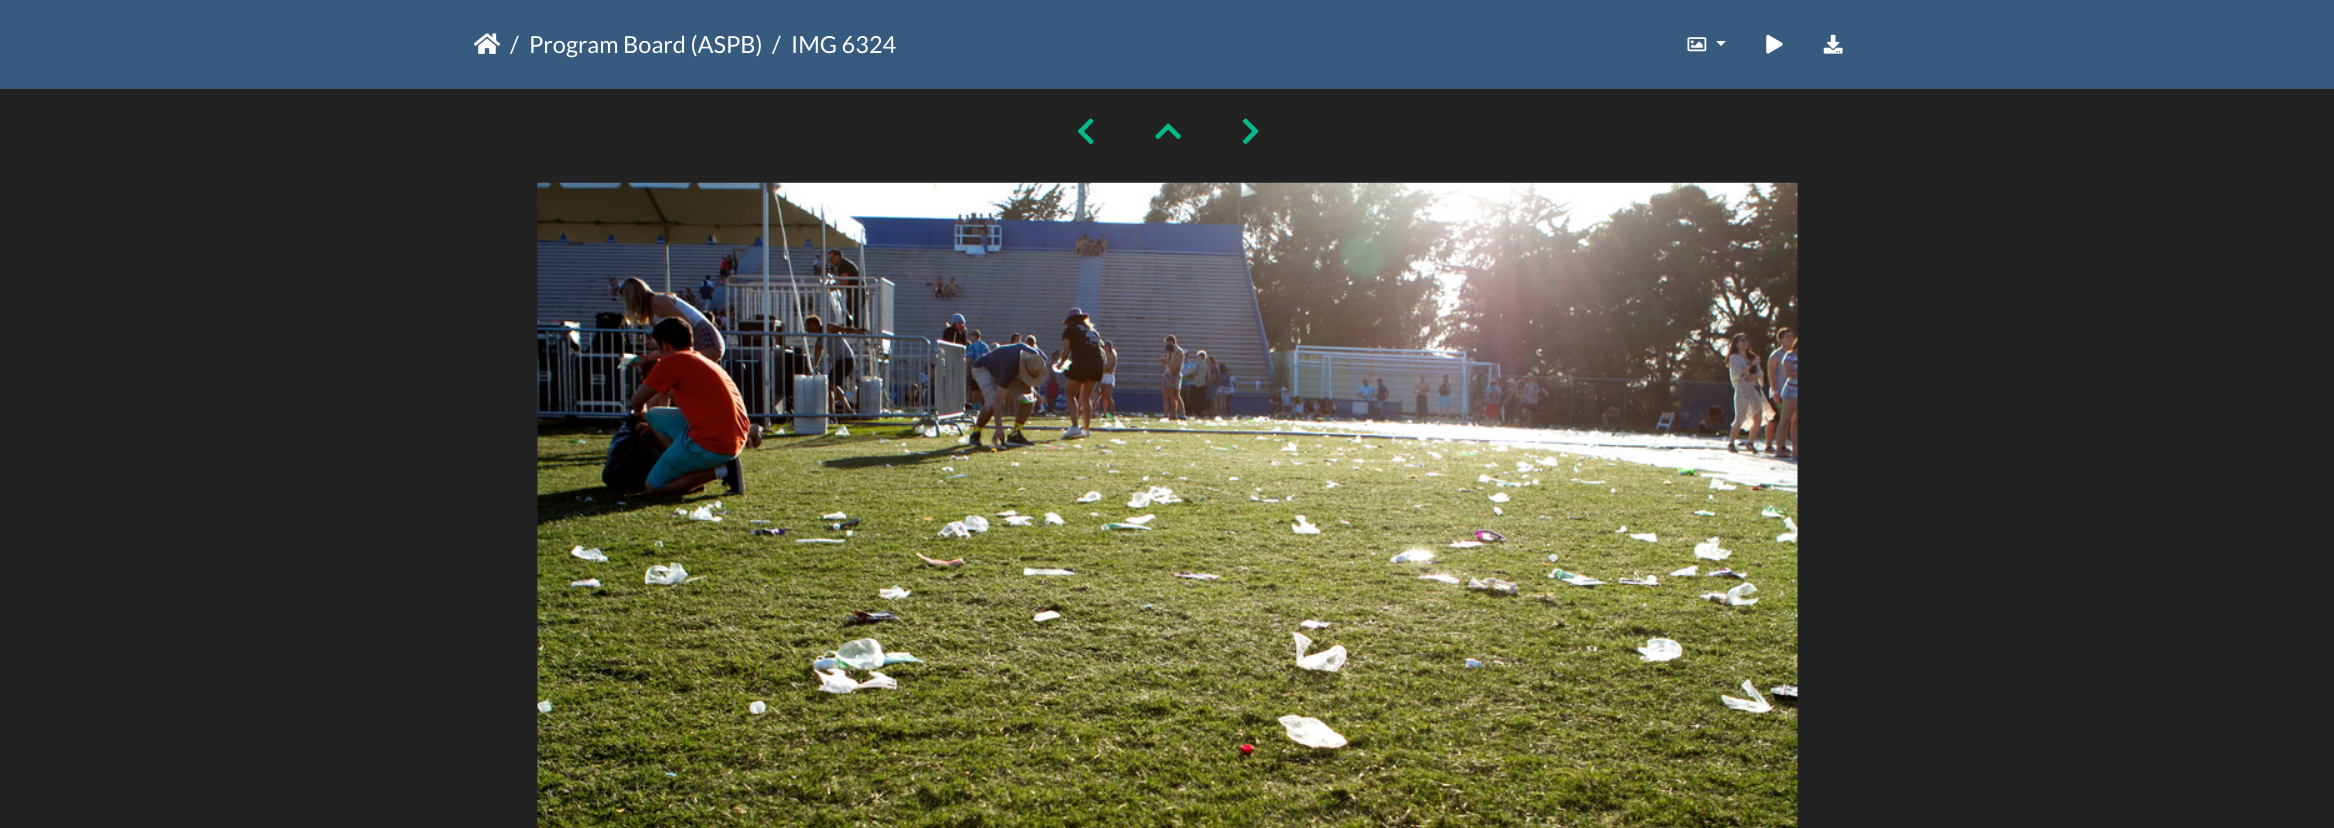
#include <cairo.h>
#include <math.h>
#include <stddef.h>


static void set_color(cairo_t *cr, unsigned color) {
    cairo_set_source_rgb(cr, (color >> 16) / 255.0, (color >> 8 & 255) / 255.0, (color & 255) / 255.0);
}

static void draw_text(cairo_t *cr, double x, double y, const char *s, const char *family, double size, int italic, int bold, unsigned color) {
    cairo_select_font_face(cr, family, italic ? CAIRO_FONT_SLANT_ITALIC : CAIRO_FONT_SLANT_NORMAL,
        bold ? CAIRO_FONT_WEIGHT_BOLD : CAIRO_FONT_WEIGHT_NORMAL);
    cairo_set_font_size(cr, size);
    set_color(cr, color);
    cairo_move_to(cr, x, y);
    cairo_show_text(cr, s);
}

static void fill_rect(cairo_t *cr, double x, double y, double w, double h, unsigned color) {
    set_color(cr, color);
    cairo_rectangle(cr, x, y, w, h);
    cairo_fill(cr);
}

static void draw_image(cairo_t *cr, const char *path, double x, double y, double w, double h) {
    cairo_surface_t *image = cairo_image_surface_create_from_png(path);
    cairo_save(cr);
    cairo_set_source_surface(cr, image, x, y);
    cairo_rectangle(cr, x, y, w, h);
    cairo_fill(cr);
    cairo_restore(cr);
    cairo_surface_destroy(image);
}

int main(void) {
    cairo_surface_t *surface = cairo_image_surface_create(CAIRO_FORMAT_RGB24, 2334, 828);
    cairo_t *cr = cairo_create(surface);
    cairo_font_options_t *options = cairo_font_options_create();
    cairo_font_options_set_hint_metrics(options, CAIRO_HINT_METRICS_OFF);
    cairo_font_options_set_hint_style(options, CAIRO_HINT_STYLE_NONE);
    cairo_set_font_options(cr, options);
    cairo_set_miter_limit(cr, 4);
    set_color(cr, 0x222222);
    cairo_paint(cr);
    fill_rect(cr, 0, 0, 2334, 89, 0x375A7F);
    draw_image(cr, "assets/img1.png", 474, 33, 26, 21);
    draw_text(cr, 510, 53, "/", "Lato", 23.5, 0, 0, 0xFFFFFF);
    draw_text(cr, 529, 53, "Program Board (ASPB)", "Lato", 23.5, 0, 0, 0xFFFFFF);
    draw_text(cr, 772, 53, "/", "Lato", 23.5, 0, 0, 0xFFFFFF);
    draw_text(cr, 791, 53, "IMG 6324", "Lato", 23.5, 0, 0, 0xFFFFFF);
    draw_image(cr, "assets/img2.png", 1687, 37, 20, 15);
    cairo_new_path(cr);
    cairo_move_to(cr, 1716, 41);
    cairo_line_to(cr, 1726, 41);
    cairo_line_to(cr, 1721, 46);
    cairo_close_path(cr);
    cairo_fill(cr);
    draw_image(cr, "assets/img3.png", 1766, 34, 17, 20);
    draw_image(cr, "assets/img4.png", 1823, 34, 20, 20);
    draw_image(cr, "assets/img5.png", 1077, 118, 17, 26);
    draw_image(cr, "assets/img6.png", 1155, 123, 26, 16);
    draw_image(cr, "assets/img7.png", 1242, 118, 17, 26);
    draw_image(cr, "assets/img8.png", 537, 182, 1261, 646);
    cairo_surface_write_to_png(surface, "output.png");
    cairo_font_options_destroy(options);
    cairo_destroy(cr);
    cairo_surface_destroy(surface);
    return 0;
}
